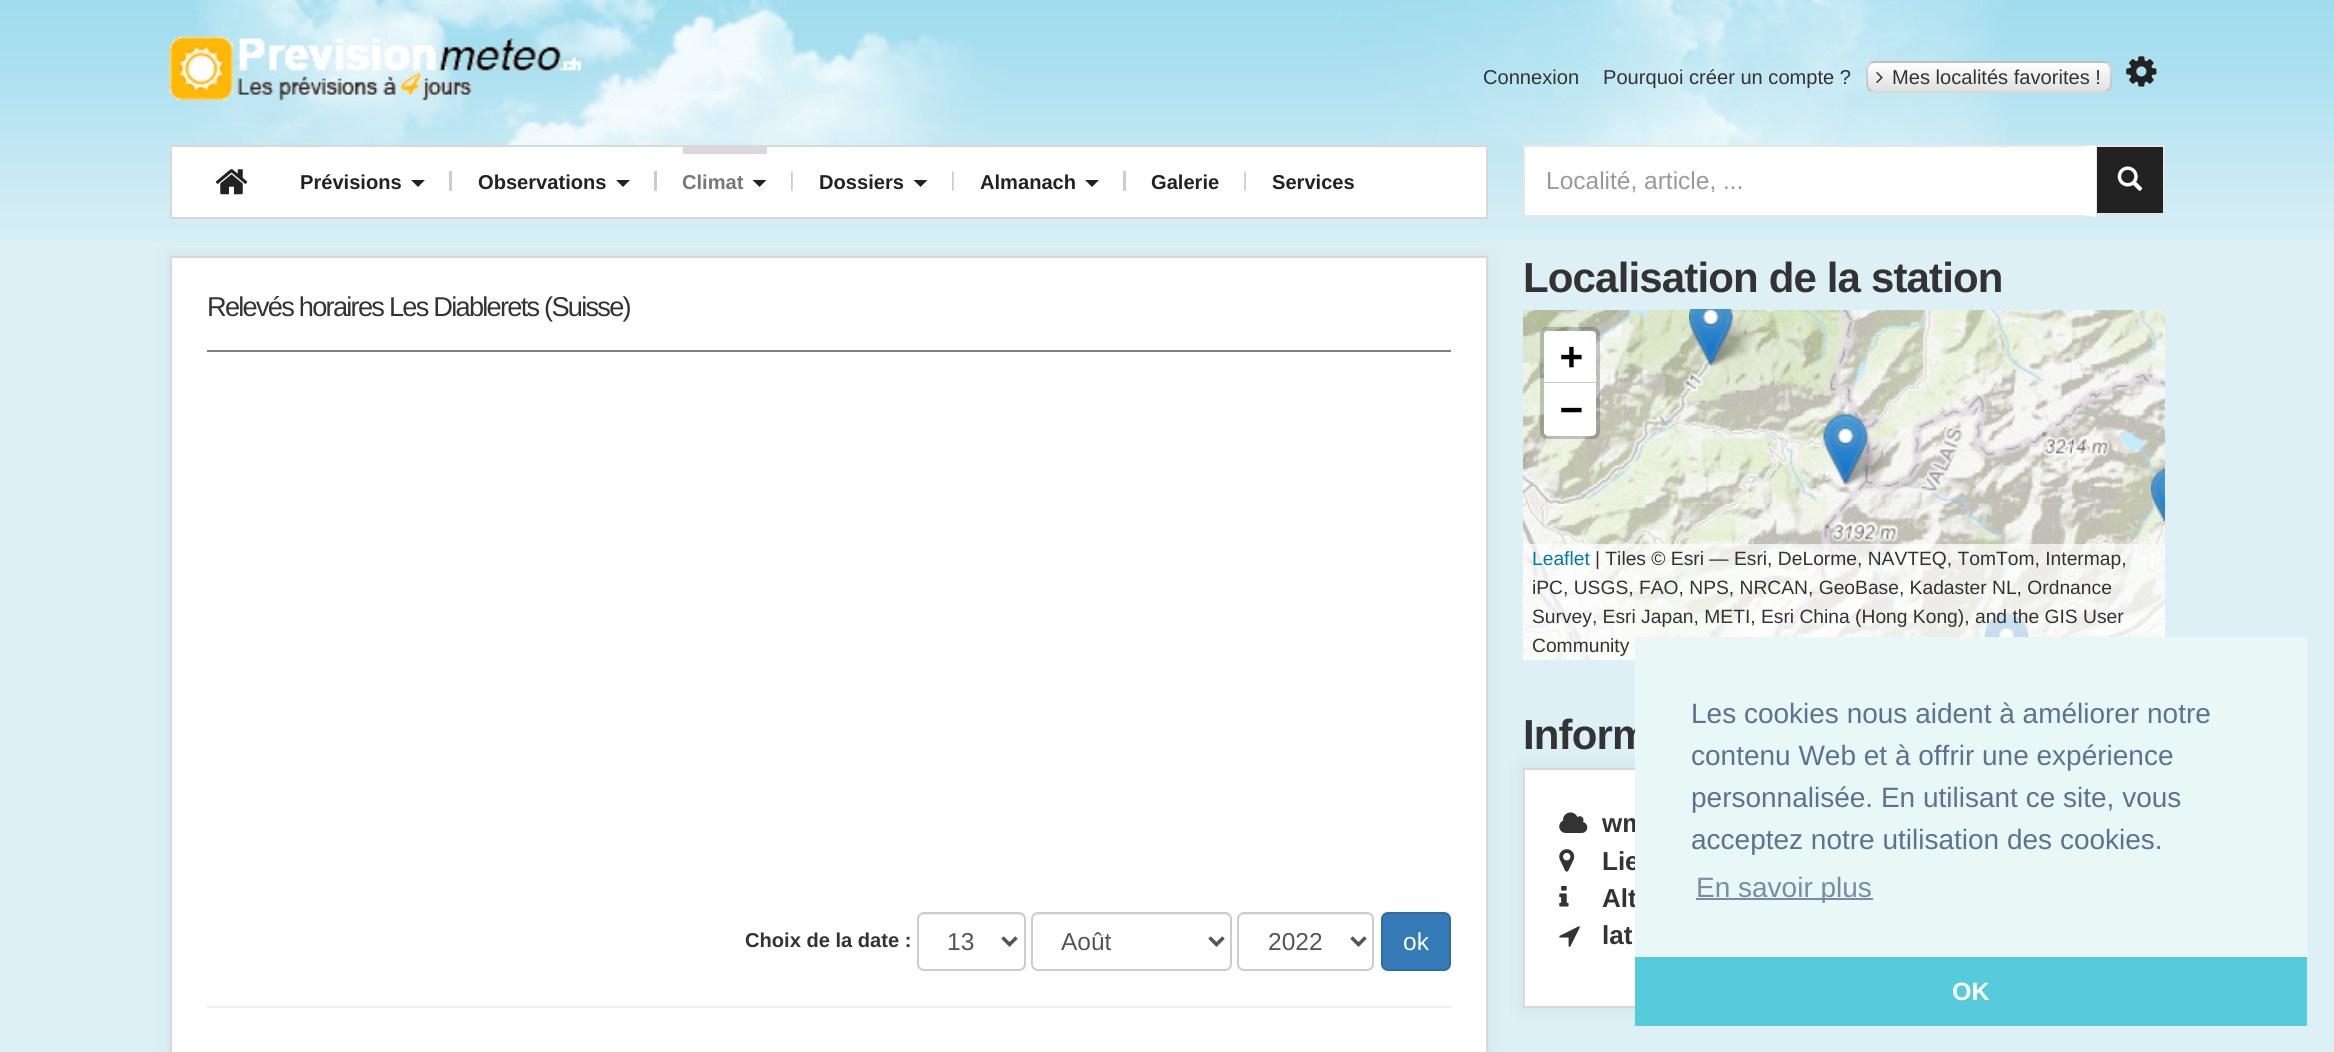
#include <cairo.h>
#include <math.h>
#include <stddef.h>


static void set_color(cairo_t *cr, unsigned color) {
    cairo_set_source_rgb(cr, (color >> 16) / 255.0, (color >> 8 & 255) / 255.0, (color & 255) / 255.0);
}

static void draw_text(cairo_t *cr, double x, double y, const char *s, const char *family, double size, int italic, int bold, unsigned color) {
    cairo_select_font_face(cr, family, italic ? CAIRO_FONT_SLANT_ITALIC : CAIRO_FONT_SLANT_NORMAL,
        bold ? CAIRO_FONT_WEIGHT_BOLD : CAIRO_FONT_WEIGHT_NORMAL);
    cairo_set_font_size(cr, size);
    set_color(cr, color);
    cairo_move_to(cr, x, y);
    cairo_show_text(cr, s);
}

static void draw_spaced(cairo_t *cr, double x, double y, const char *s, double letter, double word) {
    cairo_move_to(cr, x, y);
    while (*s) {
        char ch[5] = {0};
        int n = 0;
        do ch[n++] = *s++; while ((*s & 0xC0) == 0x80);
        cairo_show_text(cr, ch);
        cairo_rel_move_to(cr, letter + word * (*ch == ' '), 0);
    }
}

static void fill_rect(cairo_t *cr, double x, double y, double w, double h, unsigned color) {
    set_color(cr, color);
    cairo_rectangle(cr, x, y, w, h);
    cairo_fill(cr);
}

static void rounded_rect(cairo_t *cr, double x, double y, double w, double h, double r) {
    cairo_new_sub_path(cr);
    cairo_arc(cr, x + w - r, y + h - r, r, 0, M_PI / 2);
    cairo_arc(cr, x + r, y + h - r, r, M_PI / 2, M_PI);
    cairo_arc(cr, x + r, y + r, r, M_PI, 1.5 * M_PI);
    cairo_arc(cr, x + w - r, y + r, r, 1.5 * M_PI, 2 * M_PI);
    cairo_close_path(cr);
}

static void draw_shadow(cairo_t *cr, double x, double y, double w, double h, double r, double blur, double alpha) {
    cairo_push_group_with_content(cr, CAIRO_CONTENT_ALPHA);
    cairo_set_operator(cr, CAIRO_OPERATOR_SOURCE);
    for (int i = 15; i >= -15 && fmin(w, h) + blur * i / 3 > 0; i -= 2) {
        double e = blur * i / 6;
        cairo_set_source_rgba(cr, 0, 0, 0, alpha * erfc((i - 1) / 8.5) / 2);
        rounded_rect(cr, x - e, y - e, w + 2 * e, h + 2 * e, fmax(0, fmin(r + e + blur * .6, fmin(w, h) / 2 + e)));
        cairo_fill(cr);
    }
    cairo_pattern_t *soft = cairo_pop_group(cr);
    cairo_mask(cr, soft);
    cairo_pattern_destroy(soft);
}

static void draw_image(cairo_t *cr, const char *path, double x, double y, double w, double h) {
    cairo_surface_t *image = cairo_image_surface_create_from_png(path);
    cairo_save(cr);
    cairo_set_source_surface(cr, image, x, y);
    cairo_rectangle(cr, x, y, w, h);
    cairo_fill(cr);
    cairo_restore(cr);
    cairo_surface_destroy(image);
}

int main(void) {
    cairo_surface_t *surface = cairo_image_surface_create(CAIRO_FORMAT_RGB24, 2334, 1052);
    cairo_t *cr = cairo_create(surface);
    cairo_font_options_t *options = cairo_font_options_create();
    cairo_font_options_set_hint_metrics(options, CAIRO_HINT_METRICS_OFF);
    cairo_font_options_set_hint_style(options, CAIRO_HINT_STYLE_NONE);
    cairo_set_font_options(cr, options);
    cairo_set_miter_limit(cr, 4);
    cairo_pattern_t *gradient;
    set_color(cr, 0xDCF0F6);
    cairo_paint(cr);
    draw_image(cr, "assets/img1.png", 0, 0, 2334, 242);
    draw_image(cr, "assets/img2.png", 187, 0, 1820, 146);
    draw_image(cr, "assets/img3.png", 169, 36, 412, 65);
    draw_text(cr, 1483, 84, "Connexion", "Liberation Sans", 20.1, 0, 0, 0x333333);
    draw_text(cr, 1603, 84, "Pourquoi créer un compte ?", "Liberation Sans", 20.1, 0, 0, 0x333333);
    cairo_save(cr);
    rounded_rect(cr, 1866, 61, 246, 32, 9);
    cairo_clip(cr);
    gradient = cairo_pattern_create_linear(1989, 35, 1989, 63);
    cairo_pattern_add_color_stop_rgba(gradient, 0, 1, 1, 1, 1);
    cairo_pattern_add_color_stop_rgba(gradient, 1, 0.878, 0.878, 0.878, 1);
    cairo_set_source(cr, gradient);
    cairo_pattern_destroy(gradient);
    cairo_rectangle(cr, 1866, 61, 246, 2);
    cairo_fill(cr);
    gradient = cairo_pattern_create_linear(1989, 63, 1989, 91);
    cairo_pattern_add_color_stop_rgba(gradient, 0, 1, 1, 1, 1);
    cairo_pattern_add_color_stop_rgba(gradient, 1, 0.878, 0.878, 0.878, 1);
    cairo_set_source(cr, gradient);
    cairo_pattern_destroy(gradient);
    cairo_rectangle(cr, 1866, 63, 246, 28);
    cairo_fill(cr);
    gradient = cairo_pattern_create_linear(1989, 91, 1989, 119);
    cairo_pattern_add_color_stop_rgba(gradient, 0, 1, 1, 1, 1);
    cairo_pattern_add_color_stop_rgba(gradient, 1, 0.878, 0.878, 0.878, 1);
    cairo_set_source(cr, gradient);
    cairo_pattern_destroy(gradient);
    cairo_rectangle(cr, 1866, 91, 246, 2);
    cairo_fill(cr);
    cairo_restore(cr);
    rounded_rect(cr, 1867, 62, 244, 30, 8);
    cairo_set_source_rgba(cr, 0, 0, 0, 0.15);
    cairo_stroke(cr);
    draw_image(cr, "assets/img4.png", 1876, 72, 7, 12);
    draw_text(cr, 1892, 84, "Mes localités favorites !", "Liberation Sans", 20.1, 0, 0, 0x333333);
    draw_image(cr, "assets/img5.png", 2126, 56, 31, 31);
    set_color(cr, 0xFFFFFF);
    cairo_rectangle(cr, 171, 146, 1316, 72);
    cairo_fill_preserve(cr);
    set_color(cr, 0xD9D9D9);
    cairo_stroke(cr);
    draw_image(cr, "assets/img6.png", 215, 169, 33, 26);
    fill_rect(cr, 449, 171, 3, 20, 0xCCCCCC);
    draw_text(cr, 300, 189, "Prévisions", "Liberation Sans", 20.1, 0, 1, 0x222222);
    cairo_new_path(cr);
    cairo_move_to(cr, 411, 180);
    cairo_line_to(cr, 425, 180);
    cairo_line_to(cr, 418, 187);
    cairo_close_path(cr);
    cairo_fill(cr);
    fill_rect(cr, 654, 171, 3, 20, 0xCCCCCC);
    draw_text(cr, 478, 189, "Observations", "Liberation Sans", 20.1, 0, 1, 0x222222);
    cairo_new_path(cr);
    cairo_move_to(cr, 616, 180);
    cairo_line_to(cr, 630, 180);
    cairo_line_to(cr, 623, 187);
    cairo_close_path(cr);
    cairo_fill(cr);
    draw_image(cr, "assets/img7.png", 791, 171, 2, 20);
    fill_rect(cr, 683, 147, 84, 7, 0xD9D9D9);
    draw_text(cr, 682, 189, "Climat", "Liberation Sans", 20.1, 0, 1, 0x777777);
    set_color(cr, 0x222222);
    cairo_new_path(cr);
    cairo_move_to(cr, 752.5, 180);
    cairo_line_to(cr, 766.5, 180);
    cairo_line_to(cr, 759.5, 187);
    cairo_close_path(cr);
    cairo_fill(cr);
    draw_image(cr, "assets/img7.png", 952, 171, 2, 20);
    draw_text(cr, 819, 189, "Dossiers", "Liberation Sans", 20.1, 0, 1, 0x222222);
    cairo_new_path(cr);
    cairo_move_to(cr, 913.5, 180);
    cairo_line_to(cr, 927.5, 180);
    cairo_line_to(cr, 920.5, 187);
    cairo_close_path(cr);
    cairo_fill(cr);
    fill_rect(cr, 1123, 171, 3, 20, 0xCCCCCC);
    draw_text(cr, 980, 189, "Almanach", "Liberation Sans", 20.1, 0, 1, 0x222222);
    cairo_new_path(cr);
    cairo_move_to(cr, 1085, 180);
    cairo_line_to(cr, 1099, 180);
    cairo_line_to(cr, 1092, 187);
    cairo_close_path(cr);
    cairo_fill(cr);
    draw_image(cr, "assets/img8.png", 1244, 171, 2, 20);
    draw_text(cr, 1151, 189, "Galerie", "Liberation Sans", 20.1, 0, 1, 0x222222);
    draw_text(cr, 1272, 189, "Services", "Liberation Sans", 20.1, 0, 1, 0x222222);
    fill_rect(cr, 1525, 147, 554, 68, 0xFFFFFF);
    set_color(cr, 0x222222);
    cairo_rectangle(cr, 2096, 146, 68, 68);
    cairo_fill_preserve(cr);
    set_color(cr, 0xE7E7E7);
    cairo_stroke(cr);
    cairo_new_path(cr);
    cairo_move_to(cr, 1522, 145);
    cairo_line_to(cr, 2096, 145);
    cairo_line_to(cr, 2079, 147);
    cairo_line_to(cr, 1524, 147);
    cairo_close_path(cr);
    cairo_fill(cr);
    set_color(cr, 0xFFFFFF);
    cairo_new_path(cr);
    cairo_move_to(cr, 2096, 145);
    cairo_line_to(cr, 2096, 217);
    cairo_line_to(cr, 2079, 215);
    cairo_line_to(cr, 2079, 147);
    cairo_close_path(cr);
    cairo_fill(cr);
    set_color(cr, 0xE7E7E7);
    cairo_new_path(cr);
    cairo_move_to(cr, 2096, 217);
    cairo_line_to(cr, 1522, 217);
    cairo_line_to(cr, 1524, 215);
    cairo_line_to(cr, 2079, 215);
    cairo_close_path(cr);
    cairo_fill(cr);
    fill_rect(cr, 1523, 145, 2, 72, 0xE7E7E7);
    draw_text(cr, 1546, 189, "Localité, article, ...", "Liberation Sans", 24.5, 0, 0, 0x999999);
    draw_image(cr, "assets/img9.png", 2117, 166, 26, 25);
    set_color(cr, 0x000000);
    draw_shadow(cr, 168, 254, 1321, 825, 0, 9, 0.05);
    set_color(cr, 0xFFFFFF);
    cairo_rectangle(cr, 171, 257, 1316, 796);
    cairo_fill_preserve(cr);
    set_color(cr, 0xD9D9D9);
    cairo_stroke(cr);
    fill_rect(cr, 207, 350, 1244, 2, 0x7F7F7F);
    cairo_set_font_size(cr, 27.2);
    set_color(cr, 0x333333);
    draw_spaced(cr, 207, 316, "Relevés horaires Les Diablerets (Suisse)", -1.75, 0);
    draw_text(cr, 745, 947, "Choix de la date :", "Liberation Sans", 20.1, 0, 1, 0x333333);
    set_color(cr, 0xECECEC);
    cairo_new_path(cr);
    cairo_move_to(cr, 924, 915);
    cairo_line_to(cr, 1018, 915);
    cairo_curve_to(cr, 1021, 915, 1024, 918, 1024, 920);
    cairo_curve_to(cr, 1024, 910, 1008, 914, 1003, 914);
    cairo_line_to(cr, 940, 914);
    cairo_curve_to(cr, 935, 914, 919, 910, 919, 920);
    cairo_curve_to(cr, 919, 918, 921, 915, 924, 915);
    cairo_close_path(cr);
    cairo_fill(cr);
    rounded_rect(cr, 918, 913, 107, 57, 6);
    set_color(cr, 0xCCCCCC);
    cairo_stroke(cr);
    cairo_new_path(cr);
    cairo_move_to(cr, 1002.5, 937.5);
    cairo_line_to(cr, 1009.5, 944.5);
    cairo_line_to(cr, 1016.5, 937.5);
    set_color(cr, 0x555555);
    cairo_set_line_width(cr, 3.5);
    cairo_stroke(cr);
    draw_text(cr, 947, 950, "13", "Liberation Sans", 24.5, 0, 0, 0x555555);
    set_color(cr, 0xECECEC);
    cairo_new_path(cr);
    cairo_move_to(cr, 1038, 915);
    cairo_line_to(cr, 1225, 915);
    cairo_curve_to(cr, 1228, 915, 1230, 918, 1230, 920);
    cairo_line_to(cr, 1230, 919);
    cairo_curve_to(cr, 1230, 916, 1228, 914, 1225, 914);
    cairo_line_to(cr, 1038, 914);
    cairo_curve_to(cr, 1036, 914, 1034, 915, 1033, 917);
    cairo_curve_to(cr, 1034, 916, 1036, 915, 1038, 915);
    cairo_close_path(cr);
    cairo_fill(cr);
    rounded_rect(cr, 1032, 913, 199, 57, 6);
    set_color(cr, 0xCCCCCC);
    cairo_set_line_width(cr, 2);
    cairo_stroke(cr);
    cairo_new_path(cr);
    cairo_move_to(cr, 1209.5, 937.5);
    cairo_line_to(cr, 1216.5, 944.5);
    cairo_line_to(cr, 1223.5, 937.5);
    set_color(cr, 0x555555);
    cairo_set_line_width(cr, 3.5);
    cairo_stroke(cr);
    draw_text(cr, 1061, 950, "Août", "Liberation Sans", 24.5, 0, 0, 0x555555);
    set_color(cr, 0xECECEC);
    cairo_new_path(cr);
    cairo_move_to(cr, 1244, 915);
    cairo_line_to(cr, 1367, 915);
    cairo_curve_to(cr, 1370, 915, 1372, 918, 1372, 920);
    cairo_curve_to(cr, 1372, 909, 1350, 914, 1346, 914);
    cairo_line_to(cr, 1264, 914);
    cairo_curve_to(cr, 1261, 914, 1239, 909, 1239, 920);
    cairo_curve_to(cr, 1239, 918, 1241, 915, 1244, 915);
    cairo_close_path(cr);
    cairo_fill(cr);
    rounded_rect(cr, 1238, 913, 135, 57, 6);
    set_color(cr, 0xCCCCCC);
    cairo_set_line_width(cr, 2);
    cairo_stroke(cr);
    cairo_new_path(cr);
    cairo_move_to(cr, 1351.5, 937.5);
    cairo_line_to(cr, 1358.5, 944.5);
    cairo_line_to(cr, 1365.5, 937.5);
    set_color(cr, 0x555555);
    cairo_set_line_width(cr, 3.5);
    cairo_stroke(cr);
    draw_text(cr, 1268, 950, "2022", "Liberation Sans", 24.5, 0, 0, 0x555555);
    set_color(cr, 0x337AB7);
    rounded_rect(cr, 1382, 913, 68, 57, 6);
    cairo_fill_preserve(cr);
    set_color(cr, 0x2E6DA4);
    cairo_set_line_width(cr, 2);
    cairo_stroke(cr);
    draw_text(cr, 1403, 950, "ok", "Liberation Sans", 24.5, 0, 0, 0xFFFFFF);
    fill_rect(cr, 207, 1006, 1244, 2, 0xEEEEEE);
    cairo_select_font_face(cr, "Liberation Sans", CAIRO_FONT_SLANT_NORMAL, CAIRO_FONT_WEIGHT_BOLD);
    cairo_set_font_size(cr, 42);
    set_color(cr, 0x333333);
    draw_spaced(cr, 1523, 292, "Localisation de la station", -0.85, 0);
    fill_rect(cr, 1523, 310, 636, 350, 0xDDDDDD);
    draw_image(cr, "assets/img15.png", 1624, 310, 449, 195);
    draw_image(cr, "assets/img20.png", 1704, 316, 52, 50);
    draw_image(cr, "assets/img10.png", 1689, 309, 44, 57);
    draw_image(cr, "assets/img22.png", 1839, 435, 52, 50);
    draw_image(cr, "assets/img11.png", 1823, 413, 45, 72);
    draw_image(cr, "assets/img16.png", 2072, 310, 93, 194);
    draw_image(cr, "assets/img19.png", 2072, 504, 93, 133);
    draw_image(cr, "assets/img12.png", 2151, 466, 14, 59);
    draw_image(cr, "assets/img18.png", 1624, 504, 448, 156);
    draw_image(cr, "assets/img23.png", 2025, 635, 9, 2);
    draw_image(cr, "assets/img13.png", 1985, 613, 44, 24);
    draw_image(cr, "assets/img14.png", 1523, 310, 102, 195);
    draw_image(cr, "assets/img17.png", 1523, 504, 102, 156);
    draw_image(cr, "assets/img21.png", 1523, 440, 11, 34);
    rounded_rect(cr, 1542, 329, 56, 108, 5);
    cairo_set_source_rgba(cr, 0, 0, 0, 0.2);
    cairo_set_line_width(cr, 4);
    cairo_stroke(cr);
    set_color(cr, 0xFFFFFF);
    cairo_new_path(cr);
    cairo_move_to(cr, 1548, 331);
    cairo_line_to(cr, 1592, 331);
    cairo_curve_to(cr, 1594, 331, 1596, 333, 1596, 335);
    cairo_line_to(cr, 1596, 383);
    cairo_line_to(cr, 1544, 383);
    cairo_line_to(cr, 1544, 335);
    cairo_curve_to(cr, 1544, 333, 1546, 331, 1548, 331);
    cairo_close_path(cr);
    cairo_fill(cr);
    fill_rect(cr, 1544, 382, 52, 1, 0xCCCCCC);
    draw_text(cr, 1560, 369, "+", "DejaVu Sans Mono", 38, 0, 1, 0x000000);
    set_color(cr, 0xFFFFFF);
    cairo_new_path(cr);
    cairo_move_to(cr, 1544, 383);
    cairo_line_to(cr, 1596, 383);
    cairo_line_to(cr, 1596, 432);
    cairo_curve_to(cr, 1596, 434, 1594, 436, 1592, 436);
    cairo_line_to(cr, 1548, 436);
    cairo_curve_to(cr, 1546, 436, 1544, 434, 1544, 432);
    cairo_close_path(cr);
    cairo_fill(cr);
    draw_text(cr, 1560, 422, "−", "DejaVu Sans Mono", 38, 0, 1, 0x000000);
    cairo_set_source_rgba(cr, 1, 1, 1, 0.7);
    cairo_rectangle(cr, 1523, 544, 642, 116);
    cairo_fill(cr);
    draw_text(cr, 1532, 565, "Leaflet", "Liberation Sans", 19.25, 0, 0, 0x0078A8);
    draw_text(cr, 1595, 565, "| Tiles © Esri — Esri, DeLorme, NAVTEQ, TomTom, Intermap,", "Liberation Sans", 19.25, 0, 0, 0x333333);
    draw_text(cr, 1532, 594, "iPC, USGS, FAO, NPS, NRCAN, GeoBase, Kadaster NL, Ordnance", "Liberation Sans", 19.25, 0, 0, 0x333333);
    draw_text(cr, 1532, 623, "Survey, Esri Japan, METI, Esri China (Hong Kong), and the GIS User", "Liberation Sans", 19.25, 0, 0, 0x333333);
    draw_text(cr, 1532, 652, "Community", "Liberation Sans", 19.25, 0, 0, 0x333333);
    set_color(cr, 0x000000);
    draw_shadow(cr, 1521, 767, 646, 243, 0, 9, 0.05);
    cairo_select_font_face(cr, "Liberation Sans", CAIRO_FONT_SLANT_NORMAL, CAIRO_FONT_WEIGHT_BOLD);
    cairo_set_font_size(cr, 42);
    set_color(cr, 0x333333);
    draw_spaced(cr, 1523, 749, "Inform", -0.85, 0);
    fill_rect(cr, 1525, 770, 110, 236, 0xFFFFFF);
    cairo_rectangle(cr, 1524, 769, 640, 238);
    set_color(cr, 0xD9D9D9);
    cairo_set_line_width(cr, 2);
    cairo_stroke(cr);
    draw_image(cr, "assets/img24.png", 1559, 812, 29, 21);
    draw_text(cr, 1602, 832, "wm", "Liberation Sans", 26, 0, 1, 0x333333);
    draw_image(cr, "assets/img25.png", 1559, 849, 16, 23);
    draw_text(cr, 1602, 870, "Lie", "Liberation Sans", 26, 0, 1, 0x333333);
    draw_image(cr, "assets/img26.png", 1559, 885, 10, 22);
    draw_text(cr, 1602, 907, "Alt", "Liberation Sans", 26, 0, 1, 0x333333);
    draw_image(cr, "assets/img27.png", 1559, 926, 21, 21);
    draw_text(cr, 1602, 944, "lat", "Liberation Sans", 26, 0, 1, 0x333333);
    fill_rect(cr, 1635, 637, 672, 320, 0xEAF7F7);
    draw_text(cr, 1691, 723, "Les cookies nous aident à améliorer notre", "Liberation Sans", 28, 0, 0, 0x5C7291);
    draw_text(cr, 1691, 765, "contenu Web et à offrir une expérience", "Liberation Sans", 28, 0, 0, 0x5C7291);
    draw_text(cr, 1691, 807, "personnalisée. En utilisant ce site, vous", "Liberation Sans", 28, 0, 0, 0x5C7291);
    draw_text(cr, 1691, 849, "acceptez notre utilisation des cookies.", "Liberation Sans", 28, 0, 0, 0x5C7291);
    fill_rect(cr, 1696, 898, 177, 2, 0x788DA5);
    draw_text(cr, 1696, 897, "En savoir plus", "Liberation Sans", 28, 0, 0, 0x788DA5);
    fill_rect(cr, 1635, 957, 672, 69, 0x56CBDB);
    draw_text(cr, 1952, 1000, "OK", "Liberation Sans", 25, 0, 1, 0xFFFFFF);
    cairo_surface_write_to_png(surface, "output.png");
    cairo_font_options_destroy(options);
    cairo_destroy(cr);
    cairo_surface_destroy(surface);
    return 0;
}
